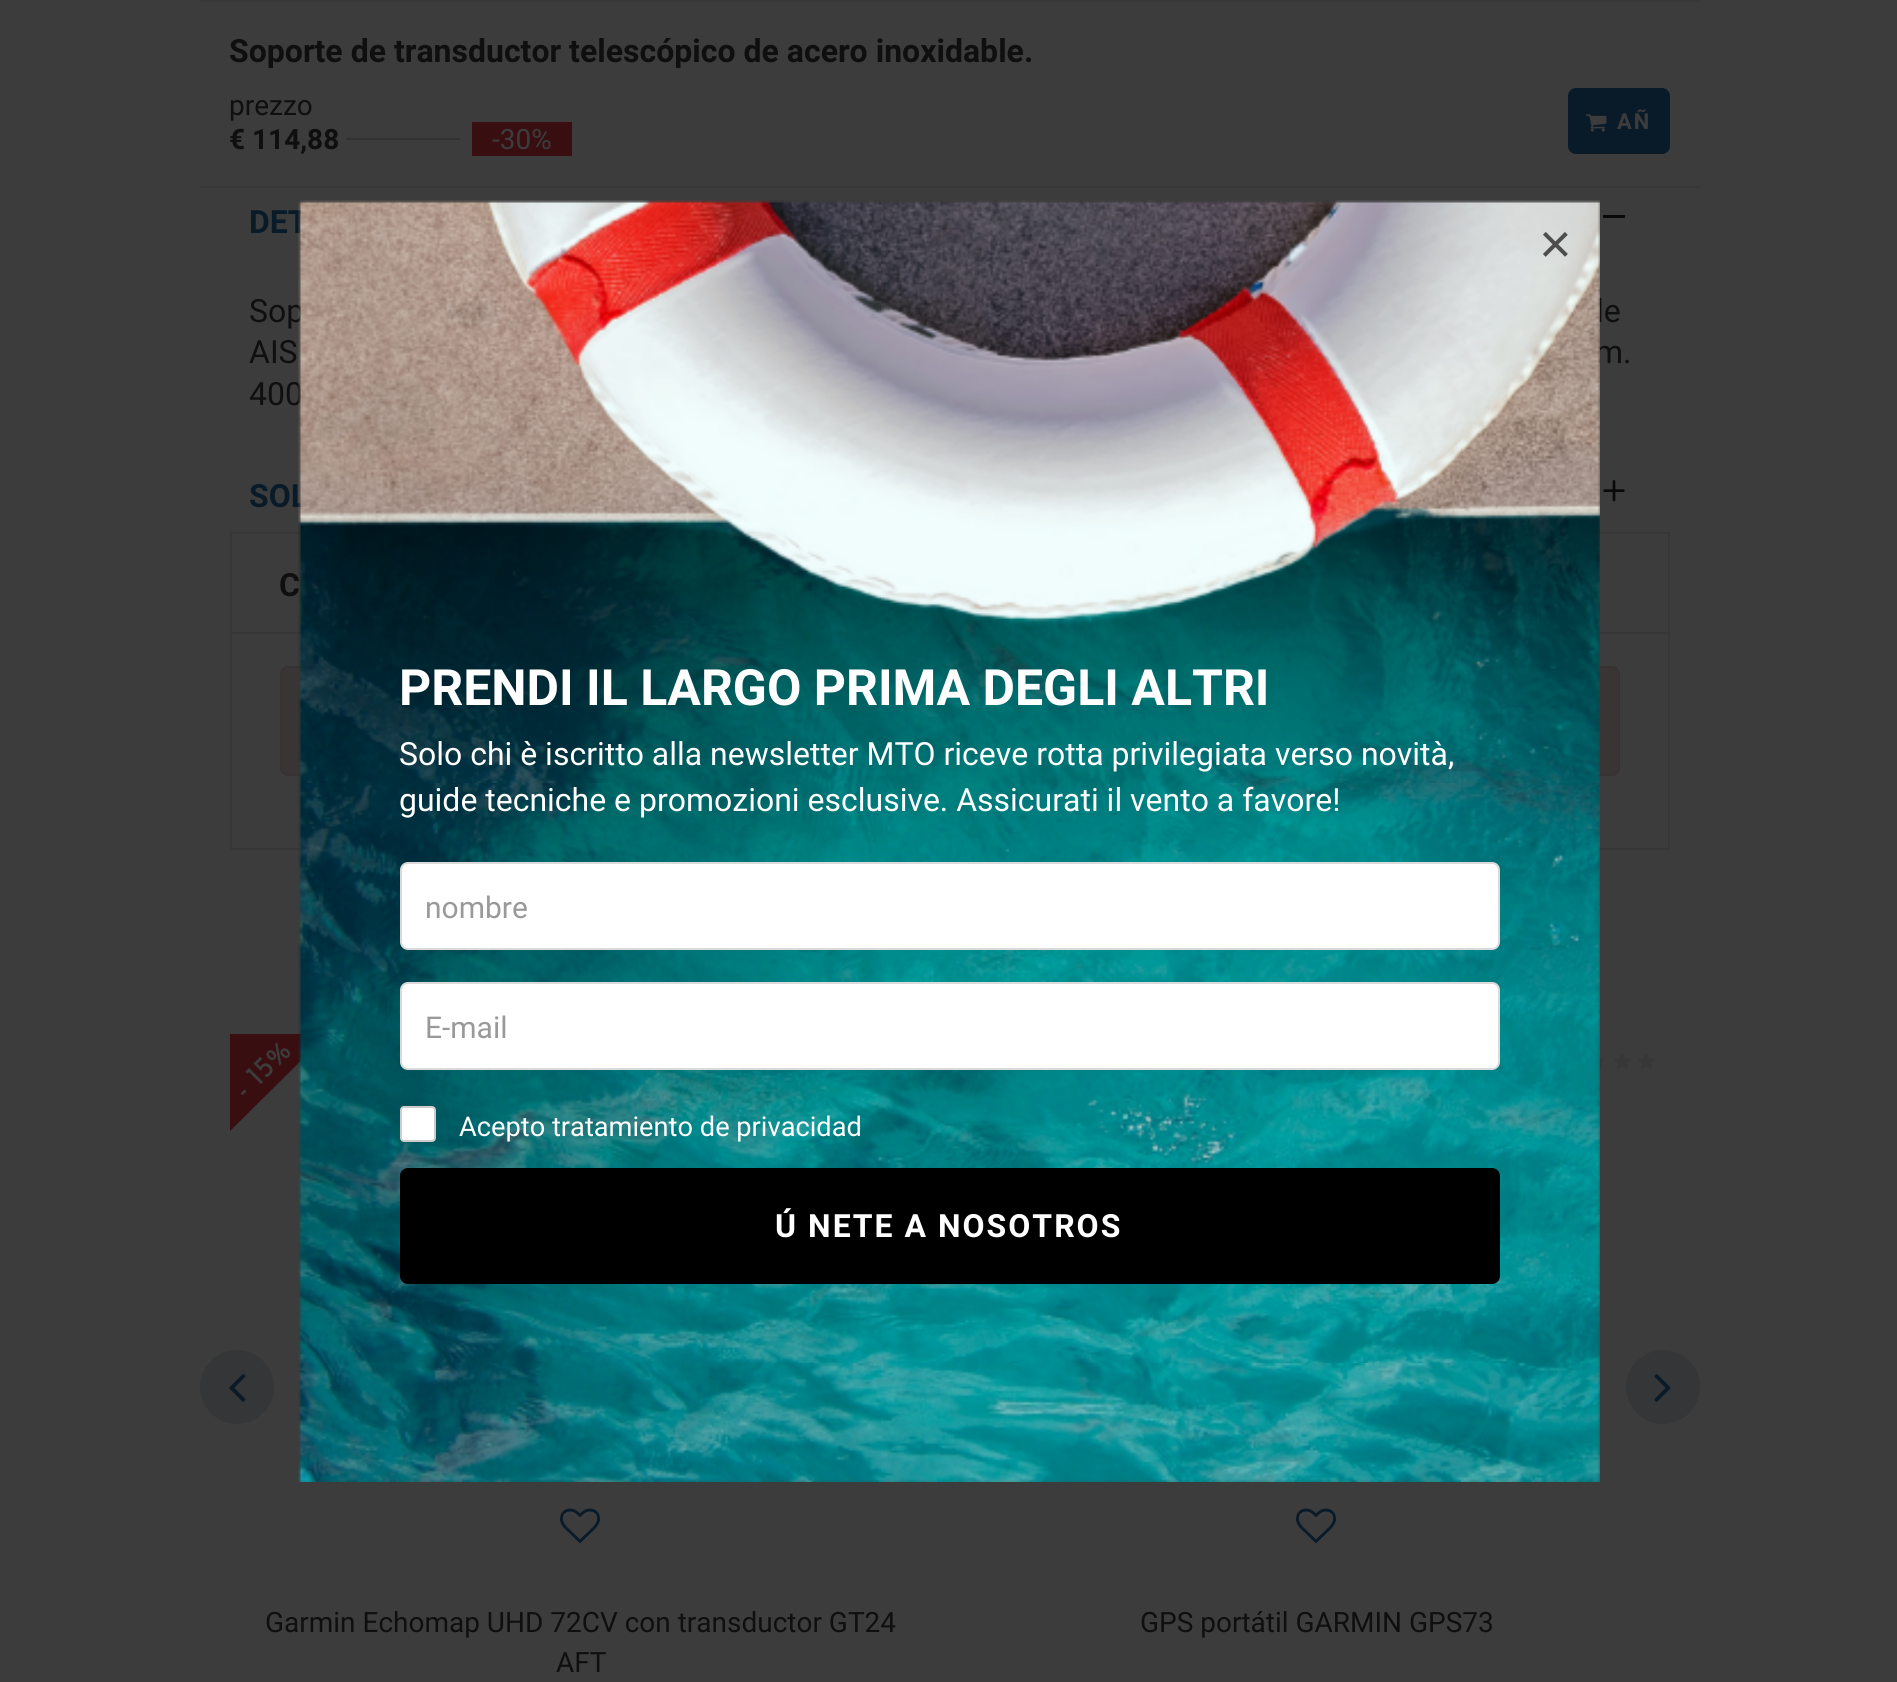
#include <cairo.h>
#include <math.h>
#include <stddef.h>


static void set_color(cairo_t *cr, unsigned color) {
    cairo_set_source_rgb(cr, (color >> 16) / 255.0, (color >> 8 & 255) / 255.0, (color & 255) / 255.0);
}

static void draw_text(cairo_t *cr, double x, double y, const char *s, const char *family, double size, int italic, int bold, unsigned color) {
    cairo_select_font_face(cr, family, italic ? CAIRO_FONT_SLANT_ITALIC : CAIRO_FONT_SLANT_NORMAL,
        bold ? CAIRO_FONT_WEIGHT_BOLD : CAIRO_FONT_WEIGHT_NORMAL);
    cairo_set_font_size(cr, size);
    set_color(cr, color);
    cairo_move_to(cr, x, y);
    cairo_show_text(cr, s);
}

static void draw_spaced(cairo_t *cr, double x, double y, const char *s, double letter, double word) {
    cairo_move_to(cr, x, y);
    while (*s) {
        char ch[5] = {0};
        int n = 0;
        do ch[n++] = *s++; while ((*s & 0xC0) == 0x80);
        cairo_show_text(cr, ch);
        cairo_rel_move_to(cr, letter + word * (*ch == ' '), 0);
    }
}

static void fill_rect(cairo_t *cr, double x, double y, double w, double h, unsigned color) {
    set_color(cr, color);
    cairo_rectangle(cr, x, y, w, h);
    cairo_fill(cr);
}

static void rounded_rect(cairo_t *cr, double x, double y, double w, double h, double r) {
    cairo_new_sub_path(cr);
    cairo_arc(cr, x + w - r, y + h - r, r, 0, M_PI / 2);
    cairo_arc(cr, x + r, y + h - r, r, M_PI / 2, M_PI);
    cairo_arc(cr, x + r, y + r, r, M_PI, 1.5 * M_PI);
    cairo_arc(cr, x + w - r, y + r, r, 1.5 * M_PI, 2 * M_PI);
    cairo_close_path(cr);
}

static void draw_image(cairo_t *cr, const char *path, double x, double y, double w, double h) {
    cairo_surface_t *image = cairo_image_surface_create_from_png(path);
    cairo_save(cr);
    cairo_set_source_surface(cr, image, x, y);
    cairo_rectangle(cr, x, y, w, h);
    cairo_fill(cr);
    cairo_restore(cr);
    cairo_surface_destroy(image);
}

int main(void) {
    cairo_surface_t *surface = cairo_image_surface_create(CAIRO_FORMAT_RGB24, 1897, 1682);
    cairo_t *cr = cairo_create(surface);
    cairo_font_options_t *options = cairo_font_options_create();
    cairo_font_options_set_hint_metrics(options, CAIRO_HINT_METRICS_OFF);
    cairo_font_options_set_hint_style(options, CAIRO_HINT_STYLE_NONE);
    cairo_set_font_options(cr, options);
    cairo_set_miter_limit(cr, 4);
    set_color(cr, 0x3C3C3C);
    cairo_paint(cr);
    fill_rect(cr, 200, 0, 1500, 2, 0x383839);
    fill_rect(cr, 200, 186, 1500, 2, 0x383839);
    cairo_save(cr);
    cairo_rectangle(cr, 230, 32, 1440, 36);
    cairo_clip(cr);
    draw_text(cr, 229, 62, "Soporte de transductor telescópico de acero inoxidable.", "Roboto", 32, 0, 1, 0x0F0F0F);
    cairo_restore(cr);
    draw_text(cr, 229, 115, "prezzo", "Roboto", 28, 0, 0, 0x0F0F0F);
    draw_text(cr, 229, 149, "€ 114,88", "Roboto", 28, 0, 1, 0x0F0F0F);
    fill_rect(cr, 346, 138, 114, 2, 0x323232);
    fill_rect(cr, 472, 122, 100, 34, 0x380E10);
    draw_text(cr, 492, 149, "-30%", "Roboto", 28, 0, 0, 0x3C3C3C);
    set_color(cr, 0x091A28);
    rounded_rect(cr, 1569, 89, 100, 64, 7);
    cairo_fill_preserve(cr);
    cairo_stroke(cr);
    draw_image(cr, "assets/img1.png", 1586, 114, 21, 18);
    cairo_select_font_face(cr, "Roboto", CAIRO_FONT_SLANT_NORMAL, CAIRO_FONT_WEIGHT_BOLD);
    cairo_set_font_size(cr, 22);
    set_color(cr, 0x3C3C3C);
    draw_spaced(cr, 1617, 129, "AÑ", 2, 0);
    draw_text(cr, 249, 233, "DET", "Roboto", 32, 0, 1, 0x091A28);
    fill_rect(cr, 1603, 215, 22, 3, 0x090909);
    draw_text(cr, 249, 322, "Sop", "Roboto", 32, 0, 0, 0x0F0F0F);
    draw_text(cr, 1596, 322, "le", "Roboto", 32, 0, 0, 0x0F0F0F);
    draw_text(cr, 249, 363, "AIS", "Roboto", 32, 0, 0, 0x0F0F0F);
    draw_text(cr, 1595, 363, "m.", "Roboto", 32, 0, 0, 0x0F0F0F);
    draw_text(cr, 249, 405, "400", "Roboto", 32, 0, 0, 0x0F0F0F);
    draw_text(cr, 249, 507, "SOL", "Roboto", 32, 0, 1, 0x091A28);
    draw_image(cr, "assets/img2.png", 1603, 480, 22, 22);
    cairo_rectangle(cr, 231, 533, 1438, 316);
    set_color(cr, 0x373737);
    cairo_stroke(cr);
    fill_rect(cr, 232, 632, 1436, 2, 0x373737);
    draw_text(cr, 279, 596, "C", "Roboto", 32, 0, 1, 0x0F0F0F);
    set_color(cr, 0x393535);
    rounded_rect(cr, 281, 667, 1338, 108, 7);
    cairo_fill_preserve(cr);
    set_color(cr, 0x383233);
    cairo_stroke(cr);
    cairo_save(cr);
    cairo_rectangle(cr, 230, 1034, 704, 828);
    cairo_clip(cr);
    set_color(cr, 0x380E10);
    cairo_new_path(cr);
    cairo_move_to(cr, 339, 1023);
    cairo_line_to(cr, 225, 1136);
    cairo_line_to(cr, 225, 1023);
    cairo_close_path(cr);
    cairo_fill(cr);
    cairo_restore(cr);
    cairo_save(cr);
    cairo_translate(cr, 245, 1100);
    cairo_rotate(cr, -45 * M_PI / 180);
    draw_text(cr, 0, 0, "- 15%", "Josefin Sans Thin", 30, 0, 0, 0x3C3C3C);
    cairo_restore(cr);
    draw_image(cr, "assets/img3.png", 560, 1508, 40, 35);
    draw_text(cr, 265, 1632, "Garmin Echomap UHD 72CV con transductor GT24", "Roboto", 28, 0, 0, 0x0F0F0F);
    draw_text(cr, 556, 1672, "AFT", "Roboto", 28, 0, 0, 0x0F0F0F);
    draw_image(cr, "assets/img4.png", 1598, 1055, 7, 14);
    draw_image(cr, "assets/img5.png", 1614, 1053, 17, 16);
    draw_image(cr, "assets/img5.png", 1638, 1053, 17, 16);
    draw_image(cr, "assets/img3.png", 1296, 1508, 40, 35);
    draw_text(cr, 1140, 1632, "GPS portátil GARMIN GPS73", "Roboto", 28, 0, 0, 0x0F0F0F);
    set_color(cr, 0x343637);
    cairo_new_path(cr);
    cairo_arc(cr, 237, 1387, 37, 0, 2 * M_PI);
    cairo_fill(cr);
    draw_image(cr, "assets/img6.png", 229, 1374, 17, 28);
    cairo_arc(cr, 1663, 1387, 37, 0, 2 * M_PI);
    cairo_fill(cr);
    draw_image(cr, "assets/img7.png", 1654, 1374, 17, 28);
    draw_image(cr, "assets/img8.png", 298, 200, 1302, 1282);
    draw_text(cr, 1539, 263, "×", "Liberation Sans", 56, 0, 0, 0x4C4D4C);
    draw_text(cr, 399, 705, "PRENDI IL LARGO PRIMA DEGLI ALTRI", "Roboto", 50, 0, 1, 0xFFFFFF);
    draw_text(cr, 399, 765, "Solo chi è iscritto alla newsletter MTO riceve rotta privilegiata verso novità,", "Roboto", 32, 0, 0, 0xFFFFFF);
    draw_text(cr, 399, 811, "guide tecniche e promozioni esclusive. Assicurati il vento a favore!", "Roboto", 32, 0, 0, 0xFFFFFF);
    rounded_rect(cr, 401, 863, 1098, 86, 7);
    cairo_fill_preserve(cr);
    set_color(cr, 0xDADADA);
    cairo_stroke(cr);
    draw_text(cr, 425, 918, "nombre", "Roboto", 30, 0, 0, 0x999999);
    set_color(cr, 0xFFFFFF);
    rounded_rect(cr, 401, 983, 1098, 86, 7);
    cairo_fill_preserve(cr);
    set_color(cr, 0xDADADA);
    cairo_stroke(cr);
    draw_text(cr, 425, 1038, "E-mail", "Roboto", 30, 0, 0, 0x999999);
    set_color(cr, 0xFFFFFF);
    rounded_rect(cr, 401, 1107, 34, 34, 3);
    cairo_fill_preserve(cr);
    set_color(cr, 0xCCCCCC);
    cairo_stroke(cr);
    draw_text(cr, 459, 1136, "Acepto tratamiento de privacidad", "Roboto", 27.25, 0, 0, 0xFFFFFF);
    set_color(cr, 0x000000);
    rounded_rect(cr, 400, 1168, 1100, 116, 8);
    cairo_fill(cr);
    cairo_select_font_face(cr, "Roboto", CAIRO_FONT_SLANT_NORMAL, CAIRO_FONT_WEIGHT_BOLD);
    cairo_set_font_size(cr, 32);
    set_color(cr, 0xFFFFFF);
    draw_spaced(cr, 775, 1237, "Ú NETE A NOSOTROS", 2, 0);
    cairo_surface_write_to_png(surface, "output.png");
    cairo_font_options_destroy(options);
    cairo_destroy(cr);
    cairo_surface_destroy(surface);
    return 0;
}
